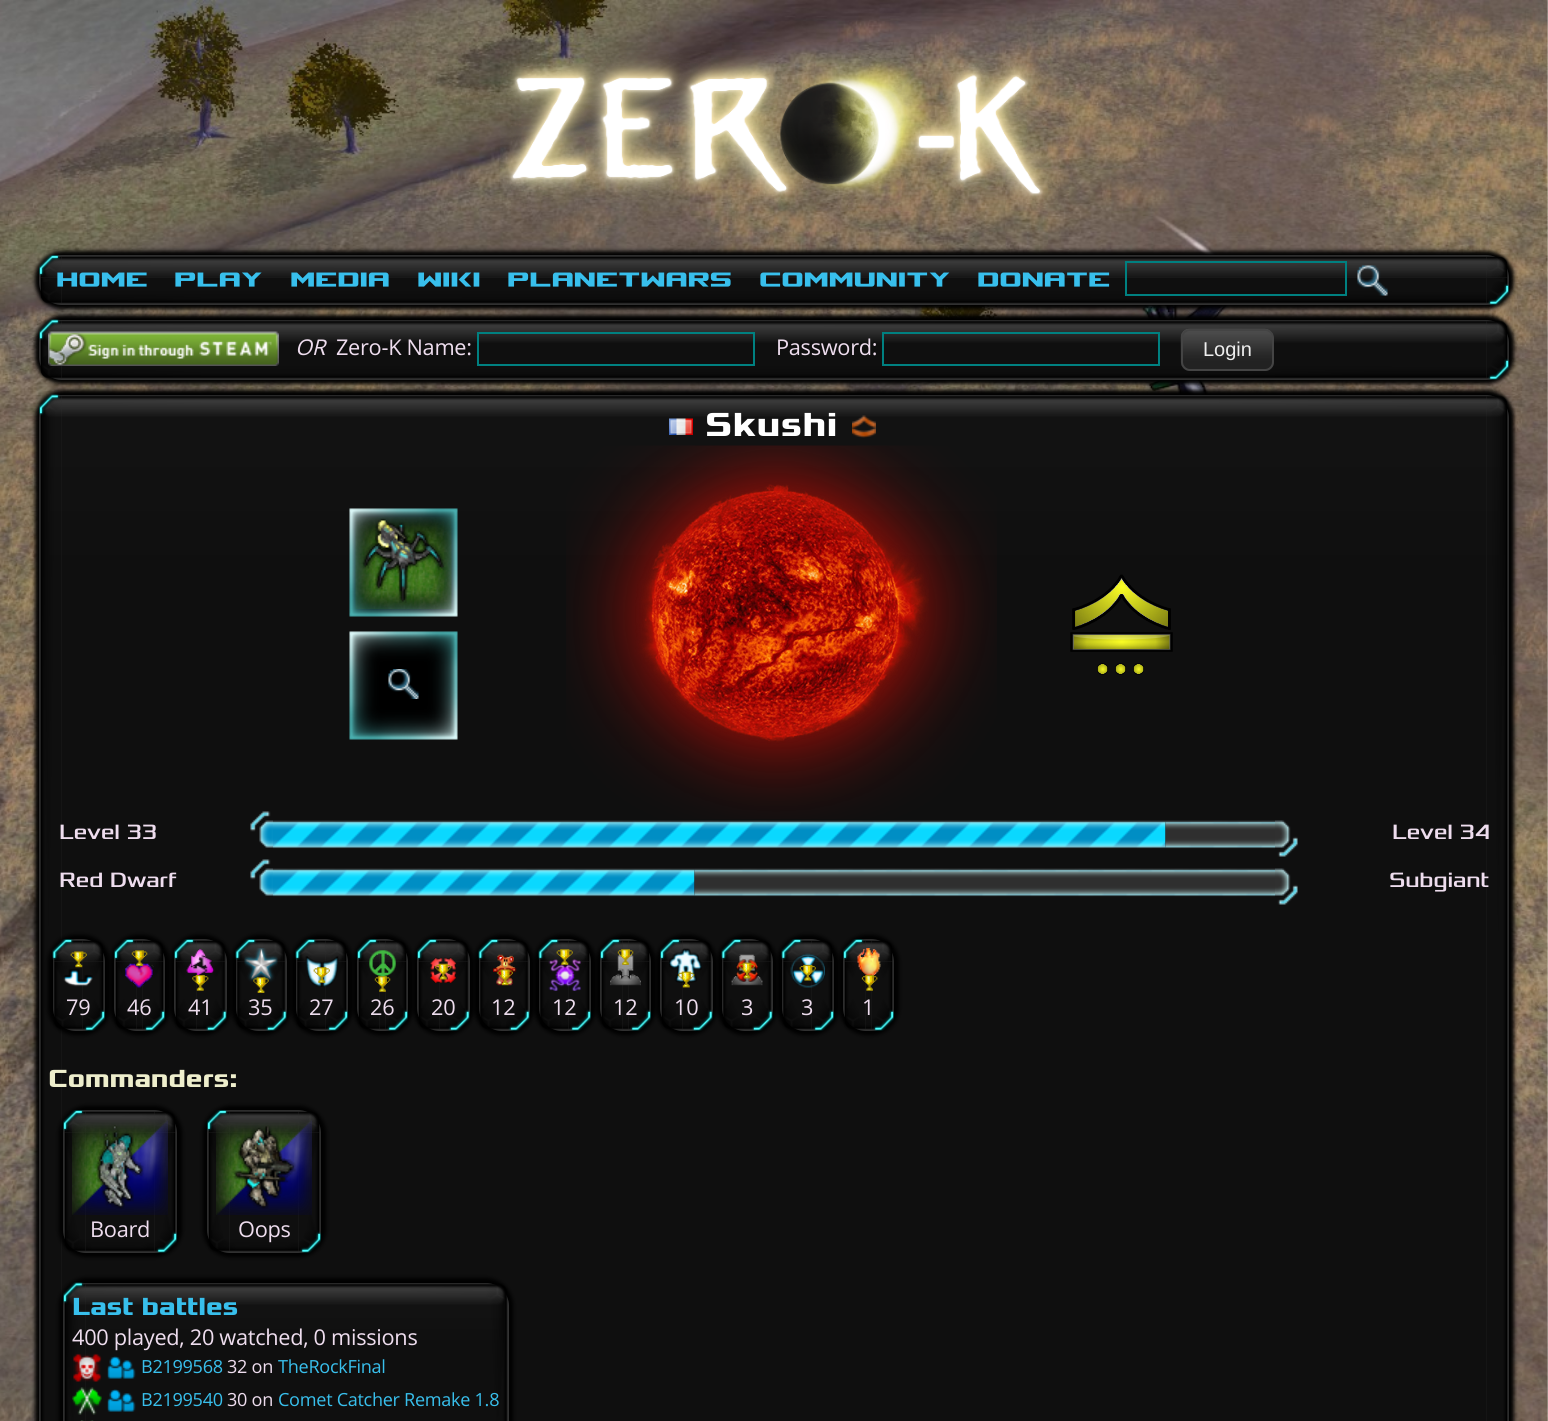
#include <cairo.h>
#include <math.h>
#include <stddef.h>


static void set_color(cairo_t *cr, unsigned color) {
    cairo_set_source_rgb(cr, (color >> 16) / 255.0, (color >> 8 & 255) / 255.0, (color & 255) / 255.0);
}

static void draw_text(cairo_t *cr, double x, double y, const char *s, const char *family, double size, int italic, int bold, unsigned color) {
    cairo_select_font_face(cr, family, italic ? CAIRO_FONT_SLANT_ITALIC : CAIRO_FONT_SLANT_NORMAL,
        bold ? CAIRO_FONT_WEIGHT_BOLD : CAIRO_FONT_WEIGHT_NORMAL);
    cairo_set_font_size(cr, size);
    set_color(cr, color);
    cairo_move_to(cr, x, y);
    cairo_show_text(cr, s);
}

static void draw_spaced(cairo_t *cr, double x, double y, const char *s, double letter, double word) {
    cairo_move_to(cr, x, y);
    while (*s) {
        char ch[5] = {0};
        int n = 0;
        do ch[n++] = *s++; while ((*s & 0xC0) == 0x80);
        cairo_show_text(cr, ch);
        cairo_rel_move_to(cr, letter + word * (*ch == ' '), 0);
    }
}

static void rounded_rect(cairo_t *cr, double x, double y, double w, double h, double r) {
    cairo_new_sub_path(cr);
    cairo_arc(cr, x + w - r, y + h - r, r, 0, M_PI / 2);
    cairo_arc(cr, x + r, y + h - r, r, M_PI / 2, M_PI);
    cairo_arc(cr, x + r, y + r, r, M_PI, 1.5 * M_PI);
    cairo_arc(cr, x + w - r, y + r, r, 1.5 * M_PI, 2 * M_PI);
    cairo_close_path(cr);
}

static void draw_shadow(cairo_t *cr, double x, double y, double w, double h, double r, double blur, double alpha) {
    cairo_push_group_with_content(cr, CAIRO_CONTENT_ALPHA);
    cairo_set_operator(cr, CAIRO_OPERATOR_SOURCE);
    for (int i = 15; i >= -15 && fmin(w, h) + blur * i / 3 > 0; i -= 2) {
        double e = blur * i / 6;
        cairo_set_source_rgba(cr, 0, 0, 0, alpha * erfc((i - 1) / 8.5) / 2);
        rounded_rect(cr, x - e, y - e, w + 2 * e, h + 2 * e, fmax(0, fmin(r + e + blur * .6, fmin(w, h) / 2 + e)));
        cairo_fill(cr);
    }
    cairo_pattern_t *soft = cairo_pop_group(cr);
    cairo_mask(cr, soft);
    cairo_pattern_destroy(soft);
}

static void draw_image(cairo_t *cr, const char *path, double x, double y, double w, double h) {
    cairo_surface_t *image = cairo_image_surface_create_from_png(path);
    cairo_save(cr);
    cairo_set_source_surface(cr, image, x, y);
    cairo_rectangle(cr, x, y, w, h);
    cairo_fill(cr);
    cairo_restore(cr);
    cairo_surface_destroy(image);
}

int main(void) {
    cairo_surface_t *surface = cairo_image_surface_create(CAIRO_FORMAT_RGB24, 1548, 1421);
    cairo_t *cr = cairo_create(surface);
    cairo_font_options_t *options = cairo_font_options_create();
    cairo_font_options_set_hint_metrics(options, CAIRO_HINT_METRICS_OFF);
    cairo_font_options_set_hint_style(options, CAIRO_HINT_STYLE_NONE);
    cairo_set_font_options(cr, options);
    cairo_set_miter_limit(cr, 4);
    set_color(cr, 0xFFFFFF);
    cairo_paint(cr);
    draw_image(cr, "assets/img1.png", 0, 0, 1548, 1421);
    draw_image(cr, "assets/img2.png", 500, 50, 558, 158);
    set_color(cr, 0x000000);
    draw_shadow(cr, 35, 251, 1479, 58, 27, 2, 1);
    set_color(cr, 0x333333);
    rounded_rect(cr, 39, 255, 1470, 50, 23);
    cairo_fill(cr);
    draw_image(cr, "assets/img3.png", 39, 255, 1470, 50);
    cairo_select_font_face(cr, "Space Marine", CAIRO_FONT_SLANT_NORMAL, CAIRO_FONT_WEIGHT_NORMAL);
    cairo_set_font_size(cr, 22.5);
    set_color(cr, 0x38BFEC);
    draw_spaced(cr, 56, 288, "Home", -0.3, 0);
    draw_spaced(cr, 174, 288, "Play", -0.3, 0);
    draw_spaced(cr, 290, 288, "Media", -0.3, 0);
    draw_spaced(cr, 417, 288, "Wiki", -0.3, 0);
    draw_spaced(cr, 507, 288, "PlanetWars", -0.3, 0);
    draw_spaced(cr, 759, 288, "Community", -0.3, 0);
    draw_spaced(cr, 977, 288, "Donate", -0.3, 0);
    cairo_rectangle(cr, 1126, 262, 220, 33);
    set_color(cr, 0x008080);
    cairo_stroke(cr);
    draw_image(cr, "assets/img4.png", 1357, 265, 31, 31);
    set_color(cr, 0x000000);
    draw_shadow(cr, 35, 315, 1479, 69, 27, 2, 1);
    set_color(cr, 0x333333);
    rounded_rect(cr, 39, 320, 1470, 60, 23);
    cairo_fill(cr);
    draw_image(cr, "assets/img5.png", 39, 319, 1470, 61);
    draw_image(cr, "assets/img6.png", 48, 331, 231, 35);
    cairo_select_font_face(cr, "Open Sans", CAIRO_FONT_SLANT_ITALIC, CAIRO_FONT_WEIGHT_NORMAL);
    cairo_set_font_size(cr, 21.75);
    set_color(cr, 0xEEDDEE);
    draw_spaced(cr, 295, 355, "OR", -0.3, 0);
    cairo_select_font_face(cr, "Open Sans", CAIRO_FONT_SLANT_NORMAL, CAIRO_FONT_WEIGHT_NORMAL);
    draw_spaced(cr, 336, 355, "Zero-K Name:", -0.3, 0);
    cairo_rectangle(cr, 478, 333, 276, 32);
    set_color(cr, 0x008080);
    cairo_stroke(cr);
    set_color(cr, 0xEEDDEE);
    draw_spaced(cr, 776, 355, "Password:", -0.3, 0);
    cairo_rectangle(cr, 883, 333, 276, 32);
    set_color(cr, 0x008080);
    cairo_stroke(cr);
    set_color(cr, 0x222222);
    rounded_rect(cr, 1181, 329, 93, 42, 9);
    cairo_fill(cr);
    draw_image(cr, "assets/img7.png", 1180, 328, 94, 38);
    rounded_rect(cr, 1182, 330, 91, 40, 8);
    set_color(cr, 0x444444);
    cairo_stroke(cr);
    draw_text(cr, 1203, 356, "Login", "Liberation Sans", 20, 0, 0, 0xEEEEEE);
    set_color(cr, 0x000000);
    draw_shadow(cr, 35, 390, 1479, 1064, 27, 2, 1);
    set_color(cr, 0x333333);
    rounded_rect(cr, 39, 395, 1470, 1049, 23);
    cairo_fill(cr);
    draw_image(cr, "assets/img8.png", 39, 394, 1470, 1027);
    draw_image(cr, "assets/img9.png", 669, 418, 24, 17);
    cairo_select_font_face(cr, "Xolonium", CAIRO_FONT_SLANT_NORMAL, CAIRO_FONT_WEIGHT_BOLD);
    cairo_set_font_size(cr, 35);
    set_color(cr, 0xFFFFFF);
    draw_spaced(cr, 705, 436, "Skushi", 0.5, 0);
    draw_image(cr, "assets/img10.png", 852, 415, 24, 23);
    draw_image(cr, "assets/img11.png", 566, 445, 431, 374);
    draw_image(cr, "assets/img12.png", 349, 508, 109, 109);
    draw_image(cr, "assets/img13.png", 355, 517, 97, 92);
    draw_image(cr, "assets/img14.png", 349, 631, 109, 109);
    draw_image(cr, "assets/img15.png", 388, 669, 31, 30);
    draw_image(cr, "assets/img16.png", 1072, 574, 99, 56);
    draw_image(cr, "assets/img17.png", 1070, 632, 103, 20);
    draw_image(cr, "assets/img18.png", 1097, 663, 11, 12);
    draw_image(cr, "assets/img18.png", 1115, 663, 11, 12);
    draw_image(cr, "assets/img18.png", 1133, 663, 11, 12);
    cairo_select_font_face(cr, "Xolonium", CAIRO_FONT_SLANT_NORMAL, CAIRO_FONT_WEIGHT_NORMAL);
    cairo_set_font_size(cr, 21.75);
    set_color(cr, 0xEEDDEE);
    draw_spaced(cr, 59, 839, "Level 33", -0.3, 0);
    draw_image(cr, "assets/img19.png", 250, 811, 23, 37);
    draw_image(cr, "assets/img20.png", 273, 820, 893, 29);
    draw_image(cr, "assets/img21.png", 1165, 820, 110, 29);
    draw_image(cr, "assets/img22.png", 1275, 820, 23, 37);
    draw_spaced(cr, 1392, 839, "Level 34", -0.3, 0);
    draw_spaced(cr, 59, 887, "Red Dwarf", -0.3, 0);
    draw_image(cr, "assets/img19.png", 250, 859, 23, 37);
    draw_image(cr, "assets/img23.png", 273, 868, 422, 29);
    draw_image(cr, "assets/img24.png", 694, 868, 581, 29);
    draw_image(cr, "assets/img22.png", 1275, 868, 23, 37);
    draw_spaced(cr, 1389, 887, "Subgiant", -0.3, 0);
    set_color(cr, 0x000000);
    draw_shadow(cr, 48, 935, 62, 100, 27, 2, 1);
    set_color(cr, 0x333333);
    rounded_rect(cr, 53, 939, 52, 92, 23);
    cairo_fill(cr);
    draw_image(cr, "assets/img25.png", 52, 939, 53, 92);
    draw_image(cr, "assets/img26.png", 63, 951, 30, 36);
    cairo_select_font_face(cr, "Open Sans", CAIRO_FONT_SLANT_NORMAL, CAIRO_FONT_WEIGHT_NORMAL);
    set_color(cr, 0xEEDDEE);
    draw_spaced(cr, 66, 1015, "79", -0.3, 0);
    set_color(cr, 0x000000);
    draw_shadow(cr, 110, 935, 60, 100, 27, 2, 1);
    set_color(cr, 0x333333);
    rounded_rect(cr, 114, 939, 51, 92, 23);
    cairo_fill(cr);
    draw_image(cr, "assets/img27.png", 114, 939, 51, 92);
    draw_image(cr, "assets/img28.png", 125, 950, 29, 38);
    set_color(cr, 0xEEDDEE);
    draw_spaced(cr, 127, 1015, "46", -0.3, 0);
    set_color(cr, 0x000000);
    draw_shadow(cr, 170, 935, 61, 100, 27, 2, 1);
    set_color(cr, 0x333333);
    rounded_rect(cr, 174, 939, 53, 92, 23);
    cairo_fill(cr);
    draw_image(cr, "assets/img29.png", 174, 939, 53, 92);
    draw_image(cr, "assets/img30.png", 186, 949, 29, 42);
    set_color(cr, 0xEEDDEE);
    draw_spaced(cr, 188, 1015, "41", -0.3, 0);
    set_color(cr, 0x000000);
    draw_shadow(cr, 231, 935, 60, 100, 27, 2, 1);
    set_color(cr, 0x333333);
    rounded_rect(cr, 236, 939, 51, 92, 23);
    cairo_fill(cr);
    draw_image(cr, "assets/img31.png", 235, 939, 52, 92);
    draw_image(cr, "assets/img32.png", 244, 948, 34, 45);
    set_color(cr, 0xEEDDEE);
    draw_spaced(cr, 248, 1015, "35", -0.3, 0);
    set_color(cr, 0x000000);
    draw_shadow(cr, 291, 935, 62, 100, 27, 2, 1);
    set_color(cr, 0x333333);
    rounded_rect(cr, 296, 939, 52, 92, 23);
    cairo_fill(cr);
    draw_image(cr, "assets/img33.png", 295, 939, 53, 92);
    draw_image(cr, "assets/img34.png", 305, 956, 34, 31);
    set_color(cr, 0xEEDDEE);
    draw_spaced(cr, 309, 1015, "27", -0.3, 0);
    set_color(cr, 0x000000);
    draw_shadow(cr, 353, 935, 60, 100, 27, 2, 1);
    set_color(cr, 0x333333);
    rounded_rect(cr, 357, 939, 51, 92, 23);
    cairo_fill(cr);
    draw_image(cr, "assets/img35.png", 357, 939, 51, 92);
    draw_image(cr, "assets/img36.png", 369, 950, 27, 42);
    set_color(cr, 0xEEDDEE);
    draw_spaced(cr, 370, 1015, "26", -0.3, 0);
    set_color(cr, 0x000000);
    draw_shadow(cr, 413, 935, 61, 100, 27, 2, 1);
    set_color(cr, 0x333333);
    rounded_rect(cr, 417, 939, 53, 92, 23);
    cairo_fill(cr);
    draw_image(cr, "assets/img37.png", 417, 939, 53, 92);
    draw_image(cr, "assets/img38.png", 430, 957, 26, 26);
    set_color(cr, 0xEEDDEE);
    draw_spaced(cr, 431, 1015, "20", -0.3, 0);
    set_color(cr, 0x000000);
    draw_shadow(cr, 474, 935, 60, 100, 27, 2, 1);
    set_color(cr, 0x333333);
    rounded_rect(cr, 479, 939, 51, 92, 23);
    cairo_fill(cr);
    draw_image(cr, "assets/img31.png", 478, 939, 52, 92);
    draw_image(cr, "assets/img39.png", 493, 954, 24, 32);
    set_color(cr, 0xEEDDEE);
    draw_spaced(cr, 491, 1015, "12", -0.3, 0);
    set_color(cr, 0x000000);
    draw_shadow(cr, 534, 935, 62, 100, 27, 2, 1);
    set_color(cr, 0x333333);
    rounded_rect(cr, 539, 939, 52, 92, 23);
    cairo_fill(cr);
    draw_image(cr, "assets/img33.png", 538, 939, 53, 92);
    draw_image(cr, "assets/img40.png", 548, 949, 33, 42);
    set_color(cr, 0xEEDDEE);
    draw_spaced(cr, 552, 1015, "12", -0.3, 0);
    set_color(cr, 0x000000);
    draw_shadow(cr, 596, 935, 60, 100, 27, 2, 1);
    set_color(cr, 0x333333);
    rounded_rect(cr, 600, 939, 51, 92, 23);
    cairo_fill(cr);
    draw_image(cr, "assets/img27.png", 600, 939, 51, 92);
    draw_image(cr, "assets/img41.png", 610, 949, 31, 37);
    set_color(cr, 0xEEDDEE);
    draw_spaced(cr, 613, 1015, "12", -0.3, 0);
    set_color(cr, 0x000000);
    draw_shadow(cr, 656, 935, 61, 100, 27, 2, 1);
    set_color(cr, 0x333333);
    rounded_rect(cr, 660, 939, 53, 92, 23);
    cairo_fill(cr);
    draw_image(cr, "assets/img42.png", 660, 939, 53, 92);
    draw_image(cr, "assets/img43.png", 669, 948, 33, 40);
    set_color(cr, 0xEEDDEE);
    draw_spaced(cr, 674, 1015, "10", -0.3, 0);
    set_color(cr, 0x000000);
    draw_shadow(cr, 717, 935, 60, 100, 27, 2, 1);
    set_color(cr, 0x333333);
    rounded_rect(cr, 722, 939, 51, 92, 23);
    cairo_fill(cr);
    draw_image(cr, "assets/img44.png", 721, 939, 52, 92);
    draw_image(cr, "assets/img45.png", 731, 954, 32, 32);
    set_color(cr, 0xEEDDEE);
    draw_spaced(cr, 741, 1015, "3", -0.3, 0);
    set_color(cr, 0x000000);
    draw_shadow(cr, 777, 935, 62, 100, 27, 2, 1);
    set_color(cr, 0x333333);
    rounded_rect(cr, 782, 939, 52, 92, 23);
    cairo_fill(cr);
    draw_image(cr, "assets/img46.png", 781, 939, 53, 92);
    draw_image(cr, "assets/img47.png", 790, 953, 35, 35);
    set_color(cr, 0xEEDDEE);
    draw_spaced(cr, 801, 1015, "3", -0.3, 0);
    set_color(cr, 0x000000);
    draw_shadow(cr, 839, 935, 60, 100, 27, 2, 1);
    set_color(cr, 0x333333);
    rounded_rect(cr, 843, 939, 51, 92, 23);
    cairo_fill(cr);
    draw_image(cr, "assets/img48.png", 843, 939, 51, 92);
    draw_image(cr, "assets/img49.png", 857, 948, 24, 43);
    set_color(cr, 0xEEDDEE);
    draw_spaced(cr, 862, 1015, "1", -0.3, 0);
    cairo_select_font_face(cr, "Xolonium", CAIRO_FONT_SLANT_NORMAL, CAIRO_FONT_WEIGHT_BOLD);
    cairo_set_font_size(cr, 26);
    set_color(cr, 0xEEEECC);
    draw_spaced(cr, 48, 1087, "Commanders:", -0.3, 0);
    set_color(cr, 0x000000);
    draw_shadow(cr, 59, 1106, 123, 151, 27, 2, 1);
    set_color(cr, 0x333333);
    rounded_rect(cr, 63, 1110, 114, 143, 23);
    cairo_fill(cr);
    draw_image(cr, "assets/img50.png", 63, 1110, 114, 143);
    draw_image(cr, "assets/img51.png", 72, 1120, 96, 95);
    cairo_select_font_face(cr, "Open Sans", CAIRO_FONT_SLANT_NORMAL, CAIRO_FONT_WEIGHT_NORMAL);
    cairo_set_font_size(cr, 21.75);
    set_color(cr, 0xEEDDEE);
    draw_spaced(cr, 90, 1237, "Board", -0.3, 0);
    set_color(cr, 0x000000);
    draw_shadow(cr, 203, 1106, 123, 151, 27, 2, 1);
    set_color(cr, 0x333333);
    rounded_rect(cr, 207, 1110, 114, 143, 23);
    cairo_fill(cr);
    draw_image(cr, "assets/img50.png", 207, 1110, 114, 143);
    draw_image(cr, "assets/img52.png", 216, 1120, 96, 95);
    set_color(cr, 0xEEDDEE);
    draw_spaced(cr, 238, 1237, "Oops", -0.3, 0);
    set_color(cr, 0x000000);
    draw_shadow(cr, 59, 1278, 454, 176, 27, 2, 1);
    set_color(cr, 0x333333);
    rounded_rect(cr, 63, 1283, 446, 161, 23);
    cairo_fill(cr);
    draw_image(cr, "assets/img53.png", 63, 1282, 445, 139);
    cairo_select_font_face(cr, "Xolonium", CAIRO_FONT_SLANT_NORMAL, CAIRO_FONT_WEIGHT_BOLD);
    cairo_set_font_size(cr, 26);
    set_color(cr, 0x38BFEC);
    draw_spaced(cr, 72, 1315, "Last battles", -0.3, 0);
    cairo_select_font_face(cr, "Open Sans", CAIRO_FONT_SLANT_NORMAL, CAIRO_FONT_WEIGHT_NORMAL);
    cairo_set_font_size(cr, 21.75);
    set_color(cr, 0xEEDDEE);
    draw_spaced(cr, 72, 1345, "400 played, 20 watched, 0 missions", -0.3, 0);
    draw_image(cr, "assets/img54.png", 73, 1353, 29, 29);
    draw_image(cr, "assets/img55.png", 107, 1356, 29, 23);
    cairo_set_font_size(cr, 18.1);
    set_color(cr, 0x38BFEC);
    draw_spaced(cr, 141, 1373, "B2199568", -0.3, 0);
    set_color(cr, 0xEEDDEE);
    draw_spaced(cr, 227, 1373, "32 on", -0.3, 0);
    set_color(cr, 0x38BFEC);
    draw_spaced(cr, 278, 1373, "TheRockFinal", -0.3, 0);
    draw_image(cr, "assets/img56.png", 72, 1387, 30, 28);
    draw_image(cr, "assets/img55.png", 107, 1389, 29, 23);
    draw_spaced(cr, 141, 1406, "B2199540", -0.3, 0);
    set_color(cr, 0xEEDDEE);
    draw_spaced(cr, 227, 1406, "30 on", -0.3, 0);
    set_color(cr, 0x38BFEC);
    draw_spaced(cr, 278, 1406, "Comet Catcher Remake 1.8", -0.3, 0);
    draw_image(cr, "assets/img57.png", 80, 1420, 14, 1);
    cairo_surface_write_to_png(surface, "output.png");
    cairo_font_options_destroy(options);
    cairo_destroy(cr);
    cairo_surface_destroy(surface);
    return 0;
}
